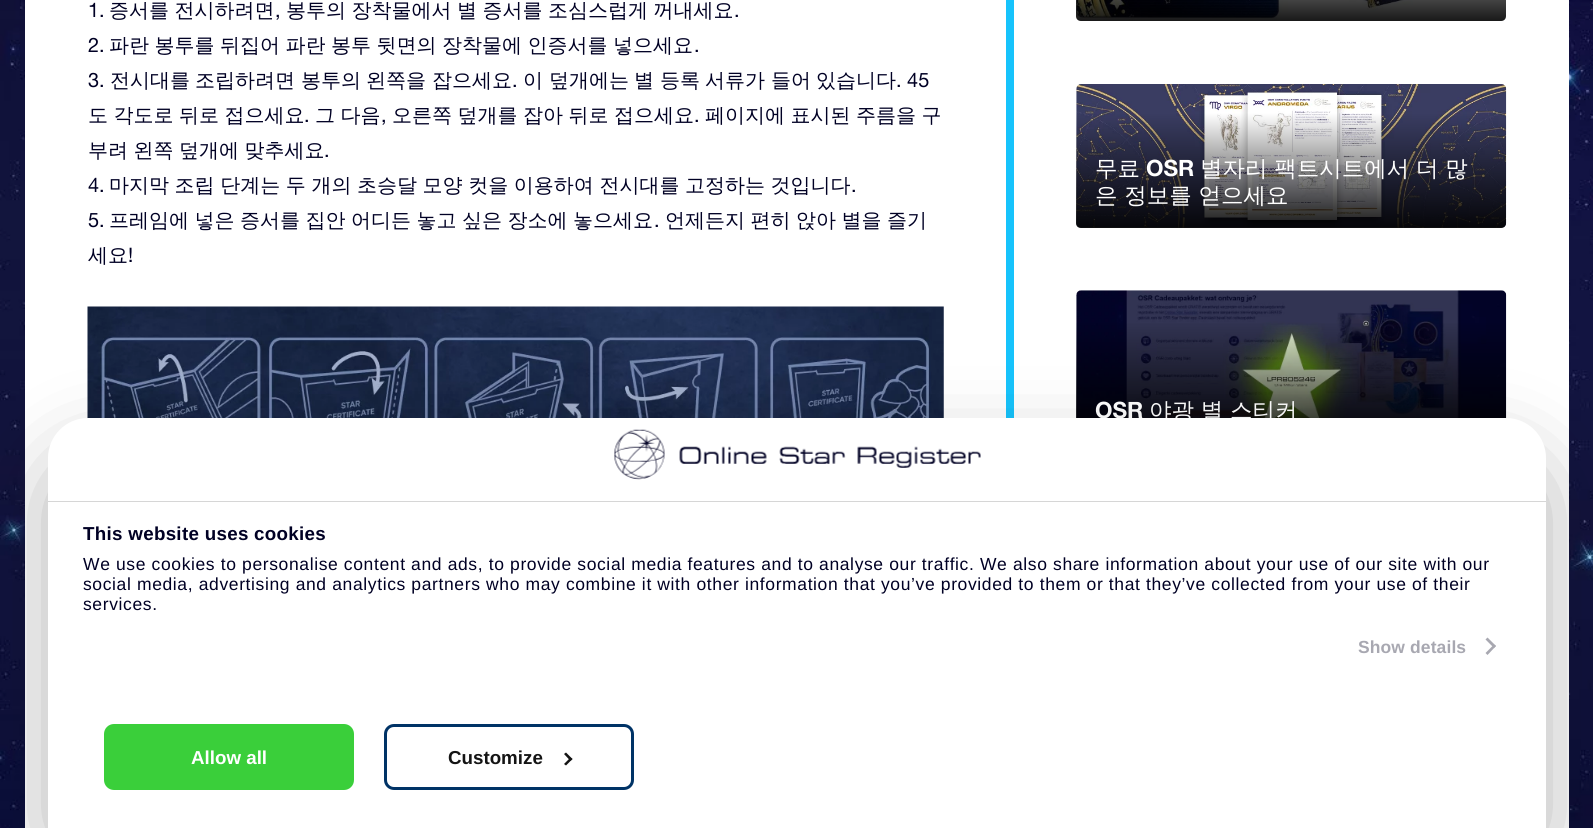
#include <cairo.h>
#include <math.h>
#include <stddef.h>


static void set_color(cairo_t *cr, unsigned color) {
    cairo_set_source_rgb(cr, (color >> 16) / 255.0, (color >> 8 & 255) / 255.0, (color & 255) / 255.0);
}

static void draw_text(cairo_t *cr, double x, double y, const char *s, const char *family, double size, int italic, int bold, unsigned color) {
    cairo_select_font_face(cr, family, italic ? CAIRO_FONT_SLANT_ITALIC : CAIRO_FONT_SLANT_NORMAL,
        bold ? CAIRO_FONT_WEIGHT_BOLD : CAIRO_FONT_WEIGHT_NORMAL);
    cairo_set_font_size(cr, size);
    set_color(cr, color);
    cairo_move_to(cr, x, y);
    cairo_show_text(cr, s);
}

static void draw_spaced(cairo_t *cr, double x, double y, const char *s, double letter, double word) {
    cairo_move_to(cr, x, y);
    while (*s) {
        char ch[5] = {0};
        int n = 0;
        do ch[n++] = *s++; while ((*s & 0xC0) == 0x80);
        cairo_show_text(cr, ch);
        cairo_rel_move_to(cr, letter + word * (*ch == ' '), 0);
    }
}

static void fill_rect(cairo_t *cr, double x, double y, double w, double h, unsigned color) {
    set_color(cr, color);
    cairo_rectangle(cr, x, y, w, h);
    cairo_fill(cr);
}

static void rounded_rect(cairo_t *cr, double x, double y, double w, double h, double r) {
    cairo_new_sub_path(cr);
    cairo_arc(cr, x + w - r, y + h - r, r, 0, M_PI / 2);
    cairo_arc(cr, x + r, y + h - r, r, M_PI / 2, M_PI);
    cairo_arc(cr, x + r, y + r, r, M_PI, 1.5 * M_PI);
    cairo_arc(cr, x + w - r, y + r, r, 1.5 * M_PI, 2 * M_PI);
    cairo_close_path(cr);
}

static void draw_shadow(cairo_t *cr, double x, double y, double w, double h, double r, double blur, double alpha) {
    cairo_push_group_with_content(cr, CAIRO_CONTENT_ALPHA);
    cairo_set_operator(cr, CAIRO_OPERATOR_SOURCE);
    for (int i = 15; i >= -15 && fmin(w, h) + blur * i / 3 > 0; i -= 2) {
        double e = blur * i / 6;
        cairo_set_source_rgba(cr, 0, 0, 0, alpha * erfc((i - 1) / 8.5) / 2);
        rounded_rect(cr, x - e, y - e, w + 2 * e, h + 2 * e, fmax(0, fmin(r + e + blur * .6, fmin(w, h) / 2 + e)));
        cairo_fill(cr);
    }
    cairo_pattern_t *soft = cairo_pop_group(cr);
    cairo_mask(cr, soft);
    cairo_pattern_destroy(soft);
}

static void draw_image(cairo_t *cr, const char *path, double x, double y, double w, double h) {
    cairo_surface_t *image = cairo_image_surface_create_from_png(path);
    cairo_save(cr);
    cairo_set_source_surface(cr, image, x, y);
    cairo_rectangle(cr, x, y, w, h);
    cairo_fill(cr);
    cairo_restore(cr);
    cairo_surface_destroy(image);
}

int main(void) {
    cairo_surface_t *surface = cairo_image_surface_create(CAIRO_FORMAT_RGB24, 1593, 828);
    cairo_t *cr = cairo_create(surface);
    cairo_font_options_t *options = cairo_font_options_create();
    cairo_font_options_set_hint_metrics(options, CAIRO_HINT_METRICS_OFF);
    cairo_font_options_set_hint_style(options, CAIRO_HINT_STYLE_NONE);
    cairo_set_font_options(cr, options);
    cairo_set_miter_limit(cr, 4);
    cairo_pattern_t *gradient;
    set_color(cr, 0xFFFFFF);
    cairo_paint(cr);
    draw_image(cr, "assets/img1.png", 0, 0, 1593, 828);
    fill_rect(cr, 25, 0, 1544, 828, 0xFFFFFF);
    fill_rect(cr, 1006, 0, 8, 418, 0x16C3FC);
    draw_text(cr, 88, 17, "1.", "Helvetica Neue", 20, 0, 0, 0x000024);
    cairo_select_font_face(cr, "WenQuanYi Zen Hei Medium", CAIRO_FONT_SLANT_NORMAL, CAIRO_FONT_WEIGHT_NORMAL);
    draw_spaced(cr, 109, 17, "증서를 전시하려면", 0, -0.5);
    draw_text(cr, 275, 17, ",", "Helvetica Neue", 20, 0, 0, 0x000024);
    cairo_select_font_face(cr, "WenQuanYi Zen Hei Medium", CAIRO_FONT_SLANT_NORMAL, CAIRO_FONT_WEIGHT_NORMAL);
    draw_spaced(cr, 286, 17, "봉투의 장착물에서 별 증서를 조심스럽게 꺼내세요", 0, -0.5);
    draw_text(cr, 734, 17, ".", "Helvetica Neue", 20, 0, 0, 0x000024);
    draw_text(cr, 88, 52, "2.", "Helvetica Neue", 20, 0, 0, 0x000024);
    cairo_select_font_face(cr, "WenQuanYi Zen Hei Medium", CAIRO_FONT_SLANT_NORMAL, CAIRO_FONT_WEIGHT_NORMAL);
    draw_spaced(cr, 109, 52, "파란 봉투를 뒤집어 파란 봉투 뒷면의 장착물에 인증서를 넣으세요", 0, -0.5);
    draw_text(cr, 694, 52, ".", "Helvetica Neue", 20, 0, 0, 0x000024);
    draw_text(cr, 88, 87, "3.", "Helvetica Neue", 20, 0, 0, 0x000024);
    draw_text(cr, 110, 87, "전시대를", "WenQuanYi Zen Hei Medium", 20, 0, 0, 0x000024);
    draw_text(cr, 195, 87, "조립하려면", "WenQuanYi Zen Hei Medium", 20, 0, 0, 0x000024);
    draw_text(cr, 301, 87, "봉투의", "WenQuanYi Zen Hei Medium", 20, 0, 0, 0x000024);
    draw_text(cr, 366, 87, "왼쪽을", "WenQuanYi Zen Hei Medium", 20, 0, 0, 0x000024);
    draw_text(cr, 432, 87, "잡으세요", "WenQuanYi Zen Hei Medium", 20, 0, 0, 0x000024);
    draw_text(cr, 512, 87, ".", "Helvetica Neue", 20, 0, 0, 0x000024);
    draw_text(cr, 523, 87, "이", "WenQuanYi Zen Hei Medium", 20, 0, 0, 0x000024);
    draw_text(cr, 549, 87, "덮개에는", "WenQuanYi Zen Hei Medium", 20, 0, 0, 0x000024);
    draw_text(cr, 634, 87, "별", "WenQuanYi Zen Hei Medium", 20, 0, 0, 0x000024);
    draw_text(cr, 660, 87, "등록", "WenQuanYi Zen Hei Medium", 20, 0, 0, 0x000024);
    draw_text(cr, 705, 87, "서류가", "WenQuanYi Zen Hei Medium", 20, 0, 0, 0x000024);
    draw_text(cr, 771, 87, "들어", "WenQuanYi Zen Hei Medium", 20, 0, 0, 0x000024);
    draw_text(cr, 816, 87, "있습니다", "WenQuanYi Zen Hei Medium", 20, 0, 0, 0x000024);
    draw_text(cr, 896, 87, ". 45", "Helvetica Neue", 20, 0, 0, 0x000024);
    cairo_select_font_face(cr, "WenQuanYi Zen Hei Medium", CAIRO_FONT_SLANT_NORMAL, CAIRO_FONT_WEIGHT_NORMAL);
    draw_spaced(cr, 88, 122, "도 각도로 뒤로 접으세요", 0, -0.5);
    draw_text(cr, 304, 122, ".", "Helvetica Neue", 20, 0, 0, 0x000024);
    cairo_select_font_face(cr, "WenQuanYi Zen Hei Medium", CAIRO_FONT_SLANT_NORMAL, CAIRO_FONT_WEIGHT_NORMAL);
    draw_spaced(cr, 315, 122, "그 다음", 0, -0.5);
    draw_text(cr, 381, 122, ",", "Helvetica Neue", 20, 0, 0, 0x000024);
    cairo_select_font_face(cr, "WenQuanYi Zen Hei Medium", CAIRO_FONT_SLANT_NORMAL, CAIRO_FONT_WEIGHT_NORMAL);
    draw_spaced(cr, 392, 122, "오른쪽 덮개를 잡아 뒤로 접으세요", 0, -0.5);
    draw_text(cr, 694, 122, ".", "Helvetica Neue", 20, 0, 0, 0x000024);
    cairo_select_font_face(cr, "WenQuanYi Zen Hei Medium", CAIRO_FONT_SLANT_NORMAL, CAIRO_FONT_WEIGHT_NORMAL);
    draw_spaced(cr, 705, 122, "페이지에 표시된 주름을 구", 0, -0.5);
    draw_spaced(cr, 88, 157, "부려 왼쪽 덮개에 맞추세요", 0, -0.5);
    draw_text(cr, 324, 157, ".", "Helvetica Neue", 20, 0, 0, 0x000024);
    draw_text(cr, 88, 192, "4.", "Helvetica Neue", 20, 0, 0, 0x000024);
    cairo_select_font_face(cr, "WenQuanYi Zen Hei Medium", CAIRO_FONT_SLANT_NORMAL, CAIRO_FONT_WEIGHT_NORMAL);
    draw_spaced(cr, 109, 192, "마지막 조립 단계는 두 개의 초승달 모양 컷을 이용하여 전시대를 고정하는 것입니다", 0, -0.4);
    draw_text(cr, 851, 192, ".", "Helvetica Neue", 20, 0, 0, 0x000024);
    draw_text(cr, 88, 227, "5.", "Helvetica Neue", 20, 0, 0, 0x000024);
    cairo_select_font_face(cr, "WenQuanYi Zen Hei Medium", CAIRO_FONT_SLANT_NORMAL, CAIRO_FONT_WEIGHT_NORMAL);
    draw_spaced(cr, 109, 227, "프레임에 넣은 증서를 집안 어디든 놓고 싶은 장소에 놓으세요", 0, -0.5);
    draw_text(cr, 654, 227, ".", "Helvetica Neue", 20, 0, 0, 0x000024);
    cairo_select_font_face(cr, "WenQuanYi Zen Hei Medium", CAIRO_FONT_SLANT_NORMAL, CAIRO_FONT_WEIGHT_NORMAL);
    draw_spaced(cr, 665, 227, "언제든지 편히 앉아 별을 즐기", 0, -0.5);
    draw_text(cr, 88, 262, "세요", "WenQuanYi Zen Hei Medium", 20, 0, 0, 0x000024);
    draw_text(cr, 128, 262, "!", "Helvetica Neue", 20, 0, 0, 0x000024);
    draw_image(cr, "assets/img2.png", 87, 306, 857, 113);
    draw_image(cr, "assets/img3.png", 1076, 0, 337, 21);
    gradient = cairo_pattern_create_linear(1076, -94, 1076, 21);
    cairo_pattern_add_color_stop_rgba(gradient, 0, 0, 0, 0, 0);
    cairo_pattern_add_color_stop_rgba(gradient, 1, 0, 0, 0, 0.9);
    cairo_set_source(cr, gradient);
    cairo_pattern_destroy(gradient);
    cairo_new_path(cr);
    cairo_move_to(cr, 1076, -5);
    cairo_line_to(cr, 1506, -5);
    cairo_line_to(cr, 1506, 16);
    cairo_curve_to(cr, 1506, 19, 1504, 21, 1501, 21);
    cairo_line_to(cr, 1081, 21);
    cairo_curve_to(cr, 1078, 21, 1076, 19, 1076, 16);
    cairo_close_path(cr);
    cairo_fill(cr);
    draw_image(cr, "assets/img4.png", 1076, 84, 431, 144);
    gradient = cairo_pattern_create_linear(1076, 113, 1076, 228);
    cairo_pattern_add_color_stop_rgba(gradient, 0, 0, 0, 0, 0);
    cairo_pattern_add_color_stop_rgba(gradient, 1, 0, 0, 0, 0.9);
    cairo_set_source(cr, gradient);
    cairo_pattern_destroy(gradient);
    cairo_new_path(cr);
    cairo_move_to(cr, 1076, 113);
    cairo_line_to(cr, 1506, 113);
    cairo_line_to(cr, 1506, 223);
    cairo_curve_to(cr, 1506, 226, 1504, 228, 1501, 228);
    cairo_line_to(cr, 1081, 228);
    cairo_curve_to(cr, 1078, 228, 1076, 226, 1076, 223);
    cairo_close_path(cr);
    cairo_fill(cr);
    draw_text(cr, 1095, 176, "무료", "WenQuanYi Zen Hei Medium", 22.5, 0, 0, 0xFFFFFF);
    draw_text(cr, 1146, 176, "OSR", "Helvetica Neue", 22.5, 0, 1, 0xFFFFFF);
    draw_text(cr, 1200, 176, "별자리 팩트시트에서 더 많", "WenQuanYi Zen Hei Medium", 22.5, 0, 0, 0xFFFFFF);
    draw_text(cr, 1095, 203, "은 정보를 얻으세요", "WenQuanYi Zen Hei Medium", 22.5, 0, 0, 0xFFFFFF);
    draw_image(cr, "assets/img5.png", 1076, 290, 431, 129);
    gradient = cairo_pattern_create_linear(1076, 320, 1076, 441);
    cairo_pattern_add_color_stop_rgba(gradient, 0, 0, 0, 0, 0);
    cairo_pattern_add_color_stop_rgba(gradient, 1, 0, 0, 0, 0.9);
    cairo_set_source(cr, gradient);
    cairo_pattern_destroy(gradient);
    cairo_rectangle(cr, 1076, 323, 430, 95);
    cairo_fill(cr);
    draw_text(cr, 1095, 418, "OSR", "Helvetica Neue", 22.5, 0, 1, 0xFFFFFF);
    draw_text(cr, 1149, 418, "야광 별 스티커", "WenQuanYi Zen Hei Medium", 22.5, 0, 0, 0xFFFFFF);
    set_color(cr, 0x000000);
    draw_shadow(cr, 48, 458, 1498, 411, 40, 42.5, 0.3);
    set_color(cr, 0xFFFFFF);
    cairo_new_path(cr);
    cairo_move_to(cr, 88, 418);
    cairo_line_to(cr, 1506, 418);
    cairo_curve_to(cr, 1528, 418, 1546, 436, 1546, 458);
    cairo_line_to(cr, 1546, 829);
    cairo_line_to(cr, 48, 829);
    cairo_line_to(cr, 48, 458);
    cairo_curve_to(cr, 48, 436, 66, 418, 88, 418);
    cairo_close_path(cr);
    cairo_fill(cr);
    fill_rect(cr, 48, 501, 1498, 1, 0xD6D6D6);
    draw_image(cr, "assets/img6.png", 614, 429, 367, 51);
    cairo_select_font_face(cr, "Liberation Sans", CAIRO_FONT_SLANT_NORMAL, CAIRO_FONT_WEIGHT_BOLD);
    cairo_set_font_size(cr, 18.75);
    set_color(cr, 0x000024);
    draw_spaced(cr, 83, 540, "This website uses cookies", 0.3, 0);
    cairo_select_font_face(cr, "Liberation Sans", CAIRO_FONT_SLANT_NORMAL, CAIRO_FONT_WEIGHT_NORMAL);
    cairo_set_font_size(cr, 17.5);
    draw_spaced(cr, 83, 570, "We use cookies to personalise content and ads, to provide social media features and to analyse our traffic. We also share information about your use of our site with our", 0.62, 0);
    draw_spaced(cr, 83, 590, "social media, advertising and analytics partners who may combine it with other information that you’ve provided to them or that they’ve collected from your use of their", 0.62, 0);
    draw_spaced(cr, 83, 610, "services.", 0.62, 0);
    cairo_select_font_face(cr, "Liberation Sans", CAIRO_FONT_SLANT_NORMAL, CAIRO_FONT_WEIGHT_BOLD);
    set_color(cr, 0xA8A8B1);
    draw_spaced(cr, 1358, 653, "Show details", 0.1, 0);
    cairo_new_path(cr);
    cairo_move_to(cr, 1487.5, 637.5);
    cairo_line_to(cr, 1496, 646);
    cairo_line_to(cr, 1494, 648);
    cairo_line_to(cr, 1485.5, 639.5);
    cairo_close_path(cr);
    cairo_fill(cr);
    cairo_new_path(cr);
    cairo_move_to(cr, 1494, 644.5);
    cairo_line_to(cr, 1496, 646);
    cairo_line_to(cr, 1487.5, 655);
    cairo_line_to(cr, 1485.5, 653);
    cairo_close_path(cr);
    cairo_fill(cr);
    set_color(cr, 0x3ACF3A);
    rounded_rect(cr, 105.5, 725.5, 247, 63, 8.5);
    cairo_fill_preserve(cr);
    cairo_set_line_width(cr, 3);
    cairo_stroke(cr);
    draw_text(cr, 191, 764, "Allow all", "Liberation Sans", 18.75, 0, 1, 0xFFFFFF);
    rounded_rect(cr, 385.5, 725.5, 247, 63, 8.5);
    set_color(cr, 0x003366);
    cairo_stroke(cr);
    draw_text(cr, 448, 764, "Customize", "Liberation Sans", 18.75, 0, 1, 0x141414);
    cairo_new_path(cr);
    cairo_move_to(cr, 566, 752.5);
    cairo_line_to(cr, 572.5, 759);
    cairo_line_to(cr, 570.5, 761);
    cairo_line_to(cr, 564, 754);
    cairo_close_path(cr);
    cairo_fill(cr);
    cairo_new_path(cr);
    cairo_move_to(cr, 570.5, 757.5);
    cairo_line_to(cr, 572.5, 759);
    cairo_line_to(cr, 566, 765.5);
    cairo_line_to(cr, 564, 764);
    cairo_close_path(cr);
    cairo_fill(cr);
    cairo_surface_write_to_png(surface, "output.png");
    cairo_font_options_destroy(options);
    cairo_destroy(cr);
    cairo_surface_destroy(surface);
    return 0;
}
